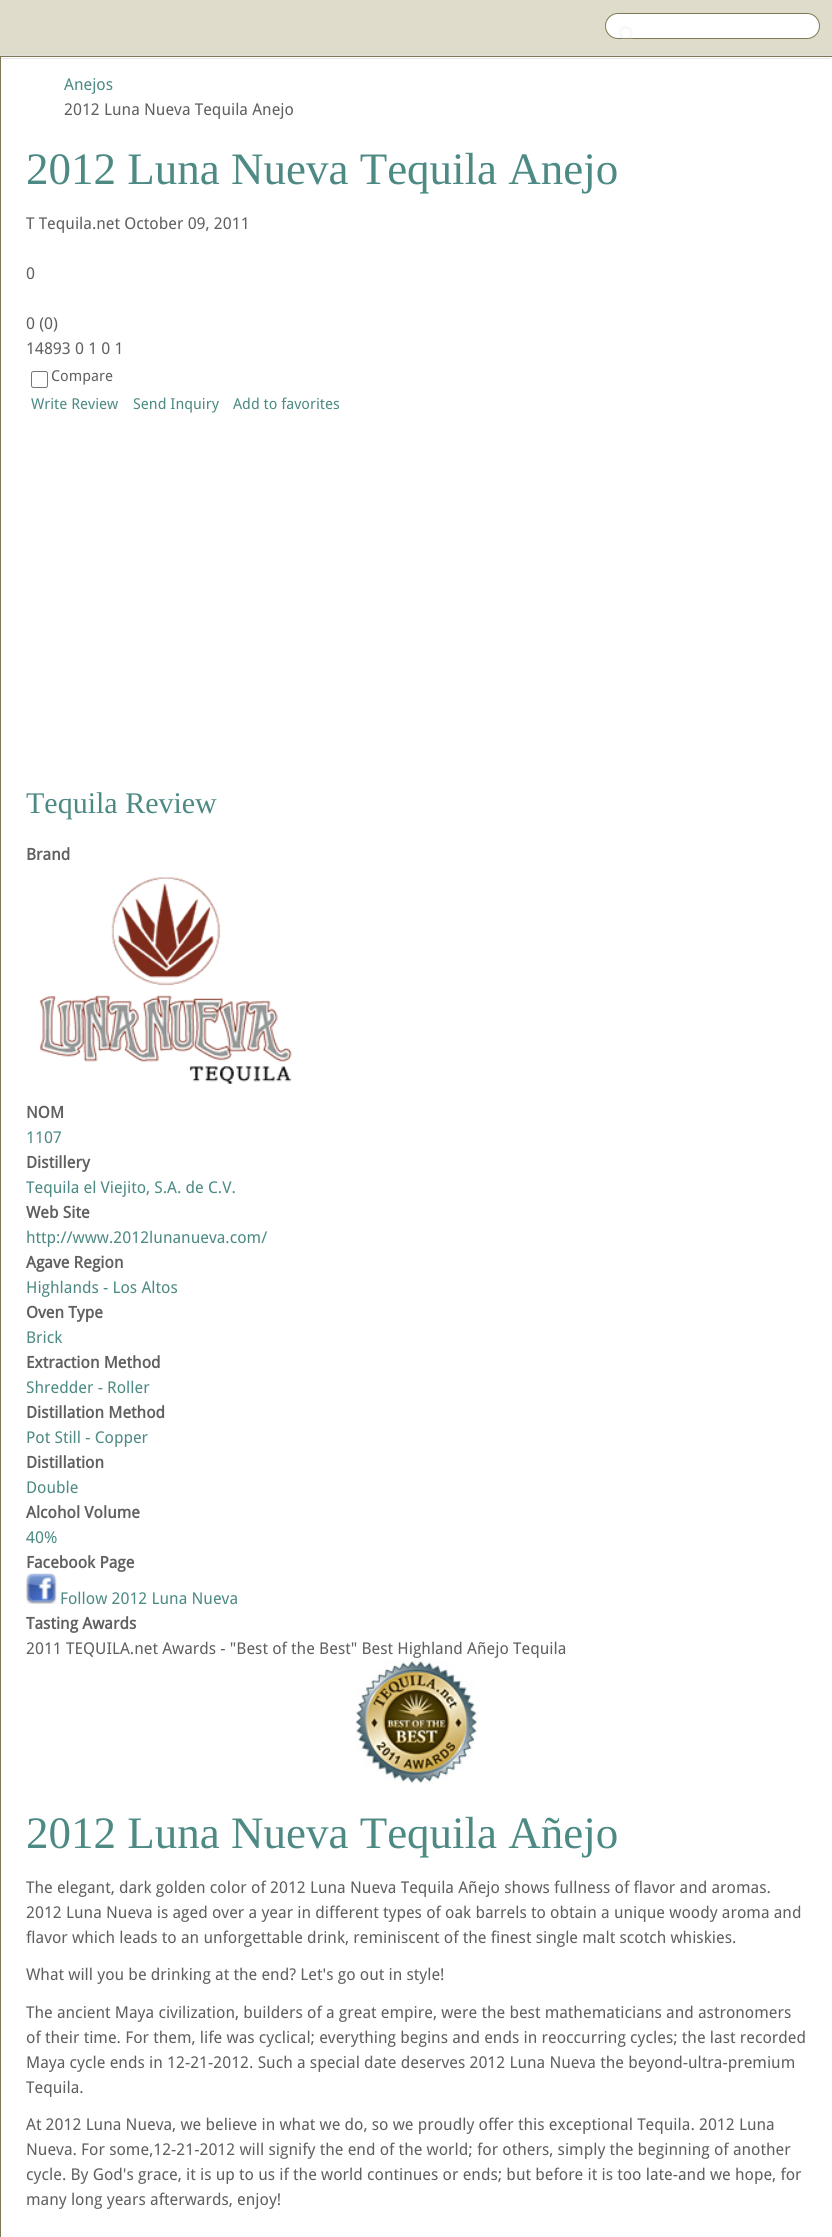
#include <cairo.h>
#include <math.h>
#include <stddef.h>


static void set_color(cairo_t *cr, unsigned color) {
    cairo_set_source_rgb(cr, (color >> 16) / 255.0, (color >> 8 & 255) / 255.0, (color & 255) / 255.0);
}

static void draw_text(cairo_t *cr, double x, double y, const char *s, const char *family, double size, int italic, int bold, unsigned color) {
    cairo_select_font_face(cr, family, italic ? CAIRO_FONT_SLANT_ITALIC : CAIRO_FONT_SLANT_NORMAL,
        bold ? CAIRO_FONT_WEIGHT_BOLD : CAIRO_FONT_WEIGHT_NORMAL);
    cairo_set_font_size(cr, size);
    set_color(cr, color);
    cairo_move_to(cr, x, y);
    cairo_show_text(cr, s);
}

static void fill_rect(cairo_t *cr, double x, double y, double w, double h, unsigned color) {
    set_color(cr, color);
    cairo_rectangle(cr, x, y, w, h);
    cairo_fill(cr);
}

static void rounded_rect(cairo_t *cr, double x, double y, double w, double h, double r) {
    cairo_new_sub_path(cr);
    cairo_arc(cr, x + w - r, y + h - r, r, 0, M_PI / 2);
    cairo_arc(cr, x + r, y + h - r, r, M_PI / 2, M_PI);
    cairo_arc(cr, x + r, y + r, r, M_PI, 1.5 * M_PI);
    cairo_arc(cr, x + w - r, y + r, r, 1.5 * M_PI, 2 * M_PI);
    cairo_close_path(cr);
}

static void draw_image(cairo_t *cr, const char *path, double x, double y, double w, double h) {
    cairo_surface_t *image = cairo_image_surface_create_from_png(path);
    cairo_save(cr);
    cairo_set_source_surface(cr, image, x, y);
    cairo_rectangle(cr, x, y, w, h);
    cairo_fill(cr);
    cairo_restore(cr);
    cairo_surface_destroy(image);
}

int main(void) {
    cairo_surface_t *surface = cairo_image_surface_create(CAIRO_FORMAT_RGB24, 832, 2237);
    cairo_t *cr = cairo_create(surface);
    cairo_font_options_t *options = cairo_font_options_create();
    cairo_font_options_set_hint_metrics(options, CAIRO_HINT_METRICS_OFF);
    cairo_font_options_set_hint_style(options, CAIRO_HINT_STYLE_NONE);
    cairo_set_font_options(cr, options);
    cairo_set_miter_limit(cr, 4);
    set_color(cr, 0xE0DCCB);
    cairo_paint(cr);
    set_color(cr, 0xFFFFFF);
    rounded_rect(cr, 605.5, 13.5, 214, 25, 12.5);
    cairo_fill_preserve(cr);
    set_color(cr, 0x7D7956);
    cairo_set_line_width(cr, 1);
    cairo_stroke(cr);
    draw_image(cr, "assets/img1.png", 619, 26, 14, 13);
    fill_rect(cr, 1, 57, 831, 2180, 0xFFFFFF);
    cairo_rectangle(cr, -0.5, 55.5, 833, 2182);
    set_color(cr, 0xDEDEDE);
    cairo_stroke(cr);
    cairo_rectangle(cr, 0.5, 56.5, 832, 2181);
    set_color(cr, 0x7D7956);
    cairo_stroke(cr);
    fill_rect(cr, 1, 58, 830, 1, 0xE6E6E6);
    draw_text(cr, 64, 90, "Anejos", "Droid Sans", 16.25, 0, 0, 0x4D8A84);
    draw_text(cr, 64, 115, "2012 Luna Nueva Tequila Anejo", "Droid Sans", 16.25, 0, 0, 0x606060);
    draw_text(cr, 26, 184, "2012 Luna Nueva Tequila Anejo", "Liberation Serif", 45, 0, 0, 0x4D8A84);
    draw_text(cr, 26, 229, "T Tequila.net October 09, 2011", "Droid Sans", 16.25, 0, 0, 0x606060);
    draw_text(cr, 26, 279, "0", "Droid Sans", 16.25, 0, 0, 0x606060);
    draw_text(cr, 26, 329, "0 (0)", "Droid Sans", 16.25, 0, 0, 0x606060);
    draw_text(cr, 26, 354, "14893 0 1 0 1", "Droid Sans", 16.25, 0, 0, 0x606060);
    rounded_rect(cr, 31.5, 371.5, 16, 16, 2);
    set_color(cr, 0x767676);
    cairo_stroke(cr);
    draw_text(cr, 51, 381, "Compare", "Droid Sans", 15, 0, 0, 0x606060);
    draw_text(cr, 31, 409, "Write Review", "Droid Sans", 15, 0, 0, 0x4D8A84);
    draw_text(cr, 133, 409, "Send Inquiry", "Droid Sans", 15, 0, 0, 0x4D8A84);
    draw_text(cr, 233, 409, "Add to favorites", "Droid Sans", 15, 0, 0, 0x4D8A84);
    draw_text(cr, 26, 813, "Tequila Review", "Liberation Serif", 30, 0, 0, 0x4D8A84);
    draw_text(cr, 26, 860, "Brand", "Droid Sans", 16.25, 0, 1, 0x606060);
    draw_image(cr, "assets/img2.png", 39, 877, 253, 207);
    draw_text(cr, 26, 1118, "NOM", "Droid Sans", 16.25, 0, 1, 0x606060);
    draw_text(cr, 26, 1143, "1107", "Droid Sans", 16.25, 0, 0, 0x4D8A84);
    draw_text(cr, 26, 1168, "Distillery", "Droid Sans", 16.25, 0, 1, 0x606060);
    draw_text(cr, 26, 1193, "Tequila el Viejito, S.A. de C.V.", "Droid Sans", 16.25, 0, 0, 0x4D8A84);
    draw_text(cr, 26, 1218, "Web Site", "Droid Sans", 16.25, 0, 1, 0x606060);
    draw_text(cr, 26, 1243, "http://www.2012lunanueva.com/", "Droid Sans", 16.25, 0, 0, 0x4D8A84);
    draw_text(cr, 26, 1268, "Agave Region", "Droid Sans", 16.25, 0, 1, 0x606060);
    draw_text(cr, 26, 1293, "Highlands - Los Altos", "Droid Sans", 16.25, 0, 0, 0x4D8A84);
    draw_text(cr, 26, 1318, "Oven Type", "Droid Sans", 16.25, 0, 1, 0x606060);
    draw_text(cr, 26, 1343, "Brick", "Droid Sans", 16.25, 0, 0, 0x4D8A84);
    draw_text(cr, 26, 1368, "Extraction Method", "Droid Sans", 16.25, 0, 1, 0x606060);
    draw_text(cr, 26, 1393, "Shredder - Roller", "Droid Sans", 16.25, 0, 0, 0x4D8A84);
    draw_text(cr, 26, 1418, "Distillation Method", "Droid Sans", 16.25, 0, 1, 0x606060);
    draw_text(cr, 26, 1443, "Pot Still - Copper", "Droid Sans", 16.25, 0, 0, 0x4D8A84);
    draw_text(cr, 26, 1468, "Distillation", "Droid Sans", 16.25, 0, 1, 0x606060);
    draw_text(cr, 26, 1493, "Double", "Droid Sans", 16.25, 0, 0, 0x4D8A84);
    draw_text(cr, 26, 1518, "Alcohol Volume", "Droid Sans", 16.25, 0, 1, 0x606060);
    draw_text(cr, 26, 1543, "40%", "Droid Sans", 16.25, 0, 0, 0x4D8A84);
    draw_text(cr, 26, 1568, "Facebook Page", "Droid Sans", 16.25, 0, 1, 0x606060);
    draw_image(cr, "assets/img3.png", 26, 1573, 31, 31);
    draw_text(cr, 60, 1604, "Follow 2012 Luna Nueva", "Droid Sans", 16.25, 0, 0, 0x4D8A84);
    draw_text(cr, 26, 1629, "Tasting Awards", "Droid Sans", 16.25, 0, 1, 0x606060);
    draw_text(cr, 26, 1654, "2011 TEQUILA.net Awards - \"Best of the Best\" Best Highland Añejo Tequila", "Droid Sans", 16.25, 0, 0, 0x606060);
    draw_image(cr, "assets/img4.png", 355, 1660, 123, 123);
    draw_text(cr, 26, 1848, "2012 Luna Nueva Tequila Añejo", "Liberation Serif", 45, 0, 0, 0x4D8A84);
    draw_text(cr, 26, 1893, "The elegant, dark golden color of 2012 Luna Nueva Tequila Añejo shows fullness of flavor and aromas.", "Droid Sans", 16.25, 0, 0, 0x606060);
    draw_text(cr, 26, 1918, "2012 Luna Nueva is aged over a year in different types of oak barrels to obtain a unique woody aroma and", "Droid Sans", 16.25, 0, 0, 0x606060);
    draw_text(cr, 26, 1943, "flavor which leads to an unforgettable drink, reminiscent of the finest single malt scotch whiskies.", "Droid Sans", 16.25, 0, 0, 0x606060);
    draw_text(cr, 26, 1980, "What will you be drinking at the end? Let's go out in style!", "Droid Sans", 16.25, 0, 0, 0x606060);
    draw_text(cr, 26, 2018, "The ancient Maya civilization, builders of a great empire, were the best mathematicians and astronomers", "Droid Sans", 16.25, 0, 0, 0x606060);
    draw_text(cr, 26, 2043, "of their time. For them, life was cyclical; everything begins and ends in reoccurring cycles; the last recorded", "Droid Sans", 16.25, 0, 0, 0x606060);
    draw_text(cr, 26, 2068, "Maya cycle ends in 12-21-2012. Such a special date deserves 2012 Luna Nueva the beyond-ultra-premium", "Droid Sans", 16.25, 0, 0, 0x606060);
    draw_text(cr, 26, 2093, "Tequila.", "Droid Sans", 16.25, 0, 0, 0x606060);
    draw_text(cr, 26, 2130, "At 2012 Luna Nueva, we believe in what we do, so we proudly offer this exceptional Tequila. 2012 Luna", "Droid Sans", 16.25, 0, 0, 0x606060);
    draw_text(cr, 26, 2155, "Nueva. For some,12-21-2012 will signify the end of the world; for others, simply the beginning of another", "Droid Sans", 16.25, 0, 0, 0x606060);
    draw_text(cr, 26, 2180, "cycle. By God's grace, it is up to us if the world continues or ends; but before it is too late-and we hope, for", "Droid Sans", 16.25, 0, 0, 0x606060);
    draw_text(cr, 26, 2205, "many long years afterwards, enjoy!", "Droid Sans", 16.25, 0, 0, 0x606060);
    cairo_surface_write_to_png(surface, "output.png");
    cairo_font_options_destroy(options);
    cairo_destroy(cr);
    cairo_surface_destroy(surface);
    return 0;
}
